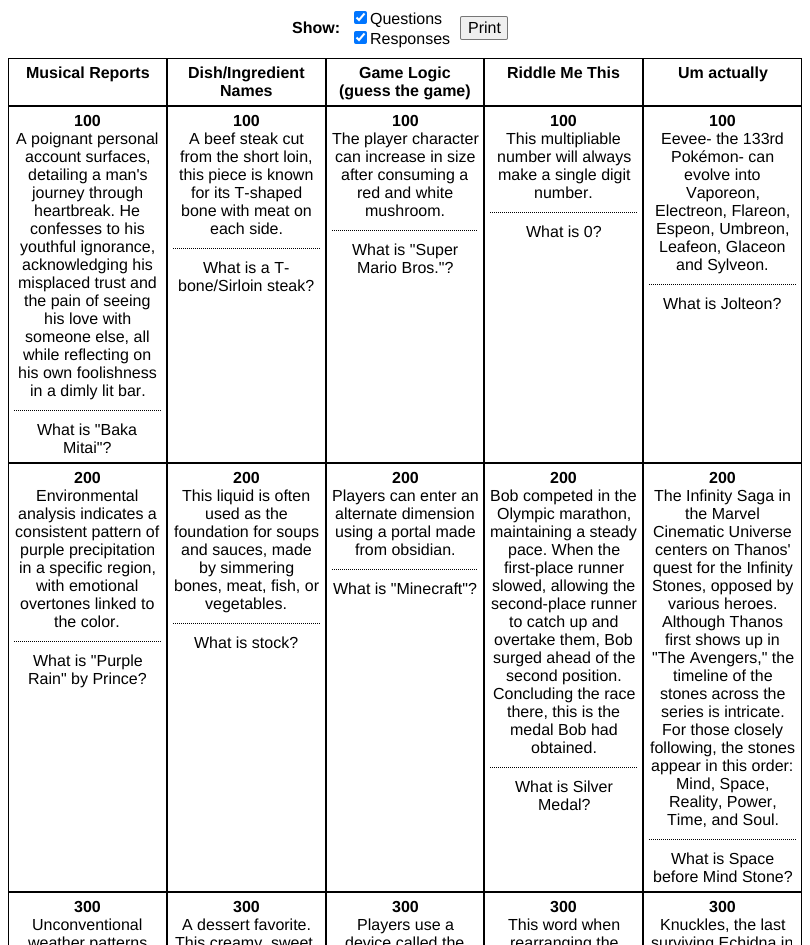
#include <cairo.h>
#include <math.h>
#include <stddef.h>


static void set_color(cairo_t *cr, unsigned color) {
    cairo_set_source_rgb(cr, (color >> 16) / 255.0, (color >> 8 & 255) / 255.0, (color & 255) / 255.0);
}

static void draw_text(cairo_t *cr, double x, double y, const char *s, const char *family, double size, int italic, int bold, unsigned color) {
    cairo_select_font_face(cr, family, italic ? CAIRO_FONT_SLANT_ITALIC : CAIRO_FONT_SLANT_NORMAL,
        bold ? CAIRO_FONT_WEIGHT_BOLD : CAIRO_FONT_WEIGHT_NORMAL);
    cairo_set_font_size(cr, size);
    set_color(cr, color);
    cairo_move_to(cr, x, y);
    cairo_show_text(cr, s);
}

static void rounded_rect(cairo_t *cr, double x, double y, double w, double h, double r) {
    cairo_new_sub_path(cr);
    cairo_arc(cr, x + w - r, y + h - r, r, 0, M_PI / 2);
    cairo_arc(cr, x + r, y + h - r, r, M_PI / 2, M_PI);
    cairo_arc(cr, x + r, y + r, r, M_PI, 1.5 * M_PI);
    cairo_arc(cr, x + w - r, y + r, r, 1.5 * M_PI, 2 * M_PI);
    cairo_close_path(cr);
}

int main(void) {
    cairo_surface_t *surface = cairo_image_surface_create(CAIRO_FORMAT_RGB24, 810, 945);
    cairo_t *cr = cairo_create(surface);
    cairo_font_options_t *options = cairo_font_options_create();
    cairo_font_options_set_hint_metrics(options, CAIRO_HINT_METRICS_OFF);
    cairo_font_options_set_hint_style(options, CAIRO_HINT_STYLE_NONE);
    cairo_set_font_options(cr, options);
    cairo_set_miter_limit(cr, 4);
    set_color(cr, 0xFFFFFF);
    cairo_paint(cr);
    draw_text(cr, 292, 33, "Show:", "Liberation Sans", 16, 0, 1, 0x000000);
    set_color(cr, 0x0075FF);
    rounded_rect(cr, 354, 11, 13, 13, 2);
    cairo_fill(cr);
    cairo_new_path(cr);
    cairo_move_to(cr, 356.5, 17.5);
    cairo_line_to(cr, 359, 20);
    cairo_line_to(cr, 364.5, 13.5);
    set_color(cr, 0xFFFFFF);
    cairo_set_line_width(cr, 2.1);
    cairo_stroke(cr);
    draw_text(cr, 370, 24, "Questions", "Liberation Sans", 16, 0, 0, 0x000000);
    set_color(cr, 0x0075FF);
    rounded_rect(cr, 354, 31, 13, 13, 2);
    cairo_fill(cr);
    cairo_new_path(cr);
    cairo_move_to(cr, 356.5, 37.5);
    cairo_line_to(cr, 359, 40);
    cairo_line_to(cr, 364.5, 33.5);
    set_color(cr, 0xFFFFFF);
    cairo_stroke(cr);
    draw_text(cr, 370, 44, "Responses", "Liberation Sans", 16, 0, 0, 0x000000);
    set_color(cr, 0xEFEFEF);
    rounded_rect(cr, 460.5, 16.5, 47, 23, 1.5);
    cairo_fill_preserve(cr);
    set_color(cr, 0x767676);
    cairo_set_line_width(cr, 1);
    cairo_stroke(cr);
    draw_text(cr, 468, 33, "Print", "Liberation Sans", 16, 0, 0, 0x000000);
    cairo_rectangle(cr, 8.5, 58.5, 158, 47);
    cairo_stroke(cr);
    draw_text(cr, 26, 78, "Musical Reports", "Liberation Sans", 16, 0, 1, 0x000000);
    cairo_rectangle(cr, 167.5, 58.5, 158, 47);
    cairo_stroke(cr);
    draw_text(cr, 188, 78, "Dish/Ingredient", "Liberation Sans", 16, 0, 1, 0x000000);
    draw_text(cr, 220, 96, "Names", "Liberation Sans", 16, 0, 1, 0x000000);
    cairo_rectangle(cr, 326.5, 58.5, 157, 47);
    cairo_stroke(cr);
    draw_text(cr, 359, 78, "Game Logic", "Liberation Sans", 16, 0, 1, 0x000000);
    draw_text(cr, 339, 96, "(guess the game)", "Liberation Sans", 16, 0, 1, 0x000000);
    cairo_rectangle(cr, 484.5, 58.5, 158, 47);
    cairo_stroke(cr);
    draw_text(cr, 507, 78, "Riddle Me This", "Liberation Sans", 16, 0, 1, 0x000000);
    cairo_rectangle(cr, 643.5, 58.5, 158, 47);
    cairo_stroke(cr);
    draw_text(cr, 678, 78, "Um actually", "Liberation Sans", 16, 0, 1, 0x000000);
    cairo_rectangle(cr, 8.5, 106.5, 158, 356);
    cairo_stroke(cr);
    draw_text(cr, 74, 126, "100", "Liberation Sans", 16, 0, 1, 0x000000);
    draw_text(cr, 16, 144, "A poignant personal", "Liberation Sans", 16, 0, 0, 0x000000);
    draw_text(cr, 25, 162, "account surfaces,", "Liberation Sans", 16, 0, 0, 0x000000);
    draw_text(cr, 28, 180, "detailing a man's", "Liberation Sans", 16, 0, 0, 0x000000);
    draw_text(cr, 32, 198, "journey through", "Liberation Sans", 16, 0, 0, 0x000000);
    draw_text(cr, 34, 216, "heartbreak. He", "Liberation Sans", 16, 0, 0, 0x000000);
    draw_text(cr, 30, 234, "confesses to his", "Liberation Sans", 16, 0, 0, 0x000000);
    draw_text(cr, 20, 252, "youthful ignorance,", "Liberation Sans", 16, 0, 0, 0x000000);
    draw_text(cr, 22, 270, "acknowledging his", "Liberation Sans", 16, 0, 0, 0x000000);
    draw_text(cr, 18, 288, "misplaced trust and", "Liberation Sans", 16, 0, 0, 0x000000);
    draw_text(cr, 24, 306, "the pain of seeing", "Liberation Sans", 16, 0, 0, 0x000000);
    draw_text(cr, 44, 324, "his love with", "Liberation Sans", 16, 0, 0, 0x000000);
    draw_text(cr, 25, 342, "someone else, all", "Liberation Sans", 16, 0, 0, 0x000000);
    draw_text(cr, 23, 360, "while reflecting on", "Liberation Sans", 16, 0, 0, 0x000000);
    draw_text(cr, 18, 378, "his own foolishness", "Liberation Sans", 16, 0, 0, 0x000000);
    draw_text(cr, 30, 396, "in a dimly lit bar.", "Liberation Sans", 16, 0, 0, 0x000000);
    cairo_new_path(cr);
    cairo_move_to(cr, 14, 410.5);
    cairo_line_to(cr, 161, 410.5);
    cairo_set_dash(cr, (double[]){1, 1}, 2, 0);
    cairo_stroke(cr);
    draw_text(cr, 37, 435, "What is \"Baka", "Liberation Sans", 16, 0, 0, 0x000000);
    draw_text(cr, 63, 453, "Mitai\"?", "Liberation Sans", 16, 0, 0, 0x000000);
    cairo_rectangle(cr, 167.5, 106.5, 158, 356);
    cairo_set_dash(cr, NULL, 0, 0);
    cairo_stroke(cr);
    draw_text(cr, 233, 126, "100", "Liberation Sans", 16, 0, 1, 0x000000);
    draw_text(cr, 189, 144, "A beef steak cut", "Liberation Sans", 16, 0, 0, 0x000000);
    draw_text(cr, 180, 162, "from the short loin,", "Liberation Sans", 16, 0, 0, 0x000000);
    draw_text(cr, 179, 180, "this piece is known", "Liberation Sans", 16, 0, 0, 0x000000);
    draw_text(cr, 191, 198, "for its T-shaped", "Liberation Sans", 16, 0, 0, 0x000000);
    draw_text(cr, 181, 216, "bone with meat on", "Liberation Sans", 16, 0, 0, 0x000000);
    draw_text(cr, 210, 234, "each side.", "Liberation Sans", 16, 0, 0, 0x000000);
    cairo_new_path(cr);
    cairo_move_to(cr, 173, 248.5);
    cairo_line_to(cr, 320, 248.5);
    cairo_set_dash(cr, (double[]){1, 1}, 2, 0);
    cairo_stroke(cr);
    draw_text(cr, 203, 273, "What is a T-", "Liberation Sans", 16, 0, 0, 0x000000);
    draw_text(cr, 178, 291, "bone/Sirloin steak?", "Liberation Sans", 16, 0, 0, 0x000000);
    cairo_rectangle(cr, 326.5, 106.5, 157, 356);
    cairo_set_dash(cr, NULL, 0, 0);
    cairo_stroke(cr);
    draw_text(cr, 392, 126, "100", "Liberation Sans", 16, 0, 1, 0x000000);
    draw_text(cr, 332, 144, "The player character", "Liberation Sans", 16, 0, 0, 0x000000);
    draw_text(cr, 335, 162, "can increase in size", "Liberation Sans", 16, 0, 0, 0x000000);
    draw_text(cr, 341, 180, "after consuming a", "Liberation Sans", 16, 0, 0, 0x000000);
    draw_text(cr, 357, 198, "red and white", "Liberation Sans", 16, 0, 0, 0x000000);
    draw_text(cr, 365, 216, "mushroom.", "Liberation Sans", 16, 0, 0, 0x000000);
    cairo_new_path(cr);
    cairo_move_to(cr, 332, 230.5);
    cairo_line_to(cr, 478, 230.5);
    cairo_set_dash(cr, (double[]){1, 1}, 2, 0);
    cairo_stroke(cr);
    draw_text(cr, 352, 255, "What is \"Super", "Liberation Sans", 16, 0, 0, 0x000000);
    draw_text(cr, 357, 273, "Mario Bros.\"?", "Liberation Sans", 16, 0, 0, 0x000000);
    cairo_rectangle(cr, 484.5, 106.5, 158, 356);
    cairo_set_dash(cr, NULL, 0, 0);
    cairo_stroke(cr);
    draw_text(cr, 550, 126, "100", "Liberation Sans", 16, 0, 1, 0x000000);
    draw_text(cr, 506, 144, "This multipliable", "Liberation Sans", 16, 0, 0, 0x000000);
    draw_text(cr, 497, 162, "number will always", "Liberation Sans", 16, 0, 0, 0x000000);
    draw_text(cr, 498, 180, "make a single digit", "Liberation Sans", 16, 0, 0, 0x000000);
    draw_text(cr, 534, 198, "number.", "Liberation Sans", 16, 0, 0, 0x000000);
    cairo_new_path(cr);
    cairo_move_to(cr, 490, 212.5);
    cairo_line_to(cr, 637, 212.5);
    cairo_set_dash(cr, (double[]){1, 1}, 2, 0);
    cairo_stroke(cr);
    draw_text(cr, 526, 237, "What is 0?", "Liberation Sans", 16, 0, 0, 0x000000);
    cairo_rectangle(cr, 643.5, 106.5, 158, 356);
    cairo_set_dash(cr, NULL, 0, 0);
    cairo_stroke(cr);
    draw_text(cr, 709, 126, "100", "Liberation Sans", 16, 0, 1, 0x000000);
    draw_text(cr, 661, 144, "Eevee- the 133rd", "Liberation Sans", 16, 0, 0, 0x000000);
    draw_text(cr, 671, 162, "Pokémon- can", "Liberation Sans", 16, 0, 0, 0x000000);
    draw_text(cr, 684, 180, "evolve into", "Liberation Sans", 16, 0, 0, 0x000000);
    draw_text(cr, 686, 198, "Vaporeon,", "Liberation Sans", 16, 0, 0, 0x000000);
    draw_text(cr, 655, 216, "Electreon, Flareon,", "Liberation Sans", 16, 0, 0, 0x000000);
    draw_text(cr, 656, 234, "Espeon, Umbreon,", "Liberation Sans", 16, 0, 0, 0x000000);
    draw_text(cr, 659, 252, "Leafeon, Glaceon", "Liberation Sans", 16, 0, 0, 0x000000);
    draw_text(cr, 676, 270, "and Sylveon.", "Liberation Sans", 16, 0, 0, 0x000000);
    cairo_new_path(cr);
    cairo_move_to(cr, 649, 284.5);
    cairo_line_to(cr, 796, 284.5);
    cairo_set_dash(cr, (double[]){1, 1}, 2, 0);
    cairo_stroke(cr);
    draw_text(cr, 663, 309, "What is Jolteon?", "Liberation Sans", 16, 0, 0, 0x000000);
    cairo_rectangle(cr, 8.5, 463.5, 158, 428);
    cairo_set_dash(cr, NULL, 0, 0);
    cairo_stroke(cr);
    draw_text(cr, 74, 483, "200", "Liberation Sans", 16, 0, 1, 0x000000);
    draw_text(cr, 36, 501, "Environmental", "Liberation Sans", 16, 0, 0, 0x000000);
    draw_text(cr, 18, 519, "analysis indicates a", "Liberation Sans", 16, 0, 0, 0x000000);
    draw_text(cr, 15, 537, "consistent pattern of", "Liberation Sans", 16, 0, 0, 0x000000);
    draw_text(cr, 20, 555, "purple precipitation", "Liberation Sans", 16, 0, 0, 0x000000);
    draw_text(cr, 19, 573, "in a specific region,", "Liberation Sans", 16, 0, 0, 0x000000);
    draw_text(cr, 36, 591, "with emotional", "Liberation Sans", 16, 0, 0, 0x000000);
    draw_text(cr, 20, 609, "overtones linked to", "Liberation Sans", 16, 0, 0, 0x000000);
    draw_text(cr, 54, 627, "the color.", "Liberation Sans", 16, 0, 0, 0x000000);
    cairo_new_path(cr);
    cairo_move_to(cr, 14, 641.5);
    cairo_line_to(cr, 161, 641.5);
    cairo_set_dash(cr, (double[]){1, 1}, 2, 0);
    cairo_stroke(cr);
    draw_text(cr, 33, 666, "What is \"Purple", "Liberation Sans", 16, 0, 0, 0x000000);
    draw_text(cr, 28, 684, "Rain\" by Prince?", "Liberation Sans", 16, 0, 0, 0x000000);
    cairo_rectangle(cr, 167.5, 463.5, 158, 428);
    cairo_set_dash(cr, NULL, 0, 0);
    cairo_stroke(cr);
    draw_text(cr, 233, 483, "200", "Liberation Sans", 16, 0, 1, 0x000000);
    draw_text(cr, 182, 501, "This liquid is often", "Liberation Sans", 16, 0, 0, 0x000000);
    draw_text(cr, 205, 519, "used as the", "Liberation Sans", 16, 0, 0, 0x000000);
    draw_text(cr, 174, 537, "foundation for soups", "Liberation Sans", 16, 0, 0, 0x000000);
    draw_text(cr, 181, 555, "and sauces, made", "Liberation Sans", 16, 0, 0, 0x000000);
    draw_text(cr, 199, 573, "by simmering", "Liberation Sans", 16, 0, 0, 0x000000);
    draw_text(cr, 174, 591, "bones, meat, fish, or", "Liberation Sans", 16, 0, 0, 0x000000);
    draw_text(cr, 205, 609, "vegetables.", "Liberation Sans", 16, 0, 0, 0x000000);
    cairo_new_path(cr);
    cairo_move_to(cr, 173, 623.5);
    cairo_line_to(cr, 320, 623.5);
    cairo_set_dash(cr, (double[]){1, 1}, 2, 0);
    cairo_stroke(cr);
    draw_text(cr, 194, 648, "What is stock?", "Liberation Sans", 16, 0, 0, 0x000000);
    cairo_rectangle(cr, 326.5, 463.5, 157, 428);
    cairo_set_dash(cr, NULL, 0, 0);
    cairo_stroke(cr);
    draw_text(cr, 392, 483, "200", "Liberation Sans", 16, 0, 1, 0x000000);
    draw_text(cr, 332, 501, "Players can enter an", "Liberation Sans", 16, 0, 0, 0x000000);
    draw_text(cr, 335, 519, "alternate dimension", "Liberation Sans", 16, 0, 0, 0x000000);
    draw_text(cr, 335, 537, "using a portal made", "Liberation Sans", 16, 0, 0, 0x000000);
    draw_text(cr, 355, 555, "from obsidian.", "Liberation Sans", 16, 0, 0, 0x000000);
    cairo_new_path(cr);
    cairo_move_to(cr, 332, 569.5);
    cairo_line_to(cr, 478, 569.5);
    cairo_set_dash(cr, (double[]){1, 1}, 2, 0);
    cairo_stroke(cr);
    draw_text(cr, 333, 594, "What is \"Minecraft\"?", "Liberation Sans", 16, 0, 0, 0x000000);
    cairo_rectangle(cr, 484.5, 463.5, 158, 428);
    cairo_set_dash(cr, NULL, 0, 0);
    cairo_stroke(cr);
    draw_text(cr, 550, 483, "200", "Liberation Sans", 16, 0, 1, 0x000000);
    draw_text(cr, 490, 501, "Bob competed in the", "Liberation Sans", 16, 0, 0, 0x000000);
    draw_text(cr, 497, 519, "Olympic marathon,", "Liberation Sans", 16, 0, 0, 0x000000);
    draw_text(cr, 490, 537, "maintaining a steady", "Liberation Sans", 16, 0, 0, 0x000000);
    draw_text(cr, 508, 555, "pace. When the", "Liberation Sans", 16, 0, 0, 0x000000);
    draw_text(cr, 504, 573, "first-place runner", "Liberation Sans", 16, 0, 0, 0x000000);
    draw_text(cr, 492, 591, "slowed, allowing the", "Liberation Sans", 16, 0, 0, 0x000000);
    draw_text(cr, 491, 609, "second-place runner", "Liberation Sans", 16, 0, 0, 0x000000);
    draw_text(cr, 509, 627, "to catch up and", "Liberation Sans", 16, 0, 0, 0x000000);
    draw_text(cr, 494, 645, "overtake them, Bob", "Liberation Sans", 16, 0, 0, 0x000000);
    draw_text(cr, 493, 663, "surged ahead of the", "Liberation Sans", 16, 0, 0, 0x000000);
    draw_text(cr, 506, 681, "second position.", "Liberation Sans", 16, 0, 0, 0x000000);
    draw_text(cr, 493, 699, "Concluding the race", "Liberation Sans", 16, 0, 0, 0x000000);
    draw_text(cr, 507, 717, "there, this is the", "Liberation Sans", 16, 0, 0, 0x000000);
    draw_text(cr, 510, 735, "medal Bob had", "Liberation Sans", 16, 0, 0, 0x000000);
    draw_text(cr, 531, 753, "obtained.", "Liberation Sans", 16, 0, 0, 0x000000);
    cairo_new_path(cr);
    cairo_move_to(cr, 490, 767.5);
    cairo_line_to(cr, 637, 767.5);
    cairo_set_dash(cr, (double[]){1, 1}, 2, 0);
    cairo_stroke(cr);
    draw_text(cr, 515, 792, "What is Silver", "Liberation Sans", 16, 0, 0, 0x000000);
    draw_text(cr, 538, 810, "Medal?", "Liberation Sans", 16, 0, 0, 0x000000);
    cairo_rectangle(cr, 643.5, 463.5, 158, 428);
    cairo_set_dash(cr, NULL, 0, 0);
    cairo_stroke(cr);
    draw_text(cr, 709, 483, "200", "Liberation Sans", 16, 0, 1, 0x000000);
    draw_text(cr, 654, 501, "The Infinity Saga in", "Liberation Sans", 16, 0, 0, 0x000000);
    draw_text(cr, 685, 519, "the Marvel", "Liberation Sans", 16, 0, 0, 0x000000);
    draw_text(cr, 653, 537, "Cinematic Universe", "Liberation Sans", 16, 0, 0, 0x000000);
    draw_text(cr, 655, 555, "centers on Thanos'", "Liberation Sans", 16, 0, 0, 0x000000);
    draw_text(cr, 653, 573, "quest for the Infinity", "Liberation Sans", 16, 0, 0, 0x000000);
    draw_text(cr, 652, 591, "Stones, opposed by", "Liberation Sans", 16, 0, 0, 0x000000);
    draw_text(cr, 668, 609, "various heroes.", "Liberation Sans", 16, 0, 0, 0x000000);
    draw_text(cr, 662, 627, "Although Thanos", "Liberation Sans", 16, 0, 0, 0x000000);
    draw_text(cr, 665, 645, "first shows up in", "Liberation Sans", 16, 0, 0, 0x000000);
    draw_text(cr, 652, 663, "\"The Avengers,\" the", "Liberation Sans", 16, 0, 0, 0x000000);
    draw_text(cr, 673, 681, "timeline of the", "Liberation Sans", 16, 0, 0, 0x000000);
    draw_text(cr, 660, 699, "stones across the", "Liberation Sans", 16, 0, 0, 0x000000);
    draw_text(cr, 661, 717, "series is intricate.", "Liberation Sans", 16, 0, 0, 0x000000);
    draw_text(cr, 662, 735, "For those closely", "Liberation Sans", 16, 0, 0, 0x000000);
    draw_text(cr, 650, 753, "following, the stones", "Liberation Sans", 16, 0, 0, 0x000000);
    draw_text(cr, 651, 771, "appear in this order:", "Liberation Sans", 16, 0, 0, 0x000000);
    draw_text(cr, 676, 789, "Mind, Space,", "Liberation Sans", 16, 0, 0, 0x000000);
    draw_text(cr, 669, 807, "Reality, Power,", "Liberation Sans", 16, 0, 0, 0x000000);
    draw_text(cr, 667, 825, "Time, and Soul.", "Liberation Sans", 16, 0, 0, 0x000000);
    cairo_new_path(cr);
    cairo_move_to(cr, 649, 839.5);
    cairo_line_to(cr, 796, 839.5);
    cairo_set_dash(cr, (double[]){1, 1}, 2, 0);
    cairo_stroke(cr);
    draw_text(cr, 671, 864, "What is Space", "Liberation Sans", 16, 0, 0, 0x000000);
    draw_text(cr, 653, 882, "before Mind Stone?", "Liberation Sans", 16, 0, 0, 0x000000);
    cairo_rectangle(cr, 8.5, 892.5, 158, 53);
    cairo_set_dash(cr, NULL, 0, 0);
    cairo_stroke(cr);
    draw_text(cr, 74, 912, "300", "Liberation Sans", 16, 0, 1, 0x000000);
    draw_text(cr, 32, 930, "Unconventional", "Liberation Sans", 16, 0, 0, 0x000000);
    draw_text(cr, 28, 948, "weather patterns", "Liberation Sans", 16, 0, 0, 0x000000);
    cairo_rectangle(cr, 167.5, 892.5, 158, 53);
    cairo_stroke(cr);
    draw_text(cr, 233, 912, "300", "Liberation Sans", 16, 0, 1, 0x000000);
    draw_text(cr, 182, 930, "A dessert favorite.", "Liberation Sans", 16, 0, 0, 0x000000);
    draw_text(cr, 175, 948, "This creamy, sweet", "Liberation Sans", 16, 0, 0, 0x000000);
    cairo_rectangle(cr, 326.5, 892.5, 157, 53);
    cairo_stroke(cr);
    draw_text(cr, 392, 912, "300", "Liberation Sans", 16, 0, 1, 0x000000);
    draw_text(cr, 357, 930, "Players use a", "Liberation Sans", 16, 0, 0, 0x000000);
    draw_text(cr, 345, 948, "device called the", "Liberation Sans", 16, 0, 0, 0x000000);
    cairo_rectangle(cr, 484.5, 892.5, 158, 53);
    cairo_stroke(cr);
    draw_text(cr, 550, 912, "300", "Liberation Sans", 16, 0, 1, 0x000000);
    draw_text(cr, 508, 930, "This word when", "Liberation Sans", 16, 0, 0, 0x000000);
    draw_text(cr, 510, 948, "rearranging the", "Liberation Sans", 16, 0, 0, 0x000000);
    cairo_rectangle(cr, 643.5, 892.5, 158, 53);
    cairo_stroke(cr);
    draw_text(cr, 709, 912, "300", "Liberation Sans", 16, 0, 1, 0x000000);
    draw_text(cr, 660, 930, "Knuckles, the last", "Liberation Sans", 16, 0, 0, 0x000000);
    draw_text(cr, 651, 948, "surviving Echidna in", "Liberation Sans", 16, 0, 0, 0x000000);
    cairo_surface_write_to_png(surface, "output.png");
    cairo_font_options_destroy(options);
    cairo_destroy(cr);
    cairo_surface_destroy(surface);
    return 0;
}
